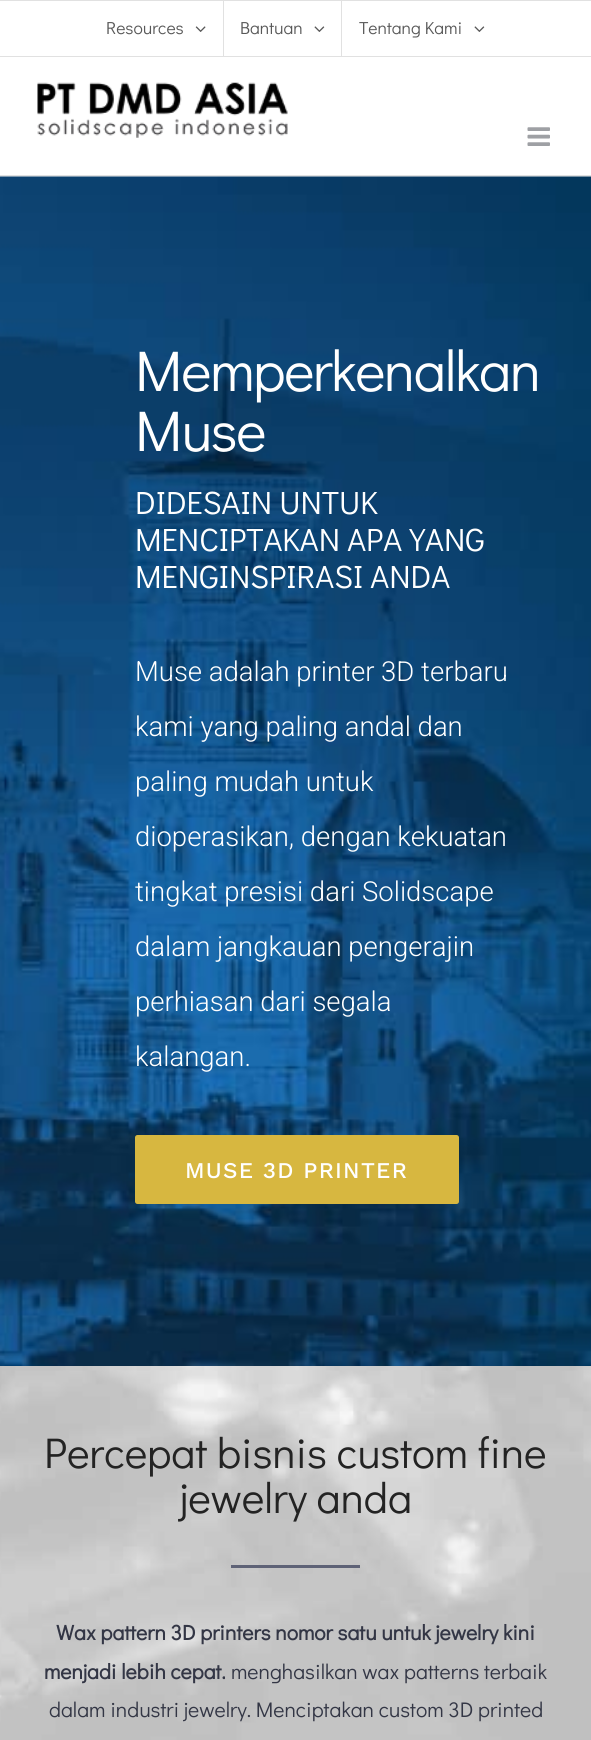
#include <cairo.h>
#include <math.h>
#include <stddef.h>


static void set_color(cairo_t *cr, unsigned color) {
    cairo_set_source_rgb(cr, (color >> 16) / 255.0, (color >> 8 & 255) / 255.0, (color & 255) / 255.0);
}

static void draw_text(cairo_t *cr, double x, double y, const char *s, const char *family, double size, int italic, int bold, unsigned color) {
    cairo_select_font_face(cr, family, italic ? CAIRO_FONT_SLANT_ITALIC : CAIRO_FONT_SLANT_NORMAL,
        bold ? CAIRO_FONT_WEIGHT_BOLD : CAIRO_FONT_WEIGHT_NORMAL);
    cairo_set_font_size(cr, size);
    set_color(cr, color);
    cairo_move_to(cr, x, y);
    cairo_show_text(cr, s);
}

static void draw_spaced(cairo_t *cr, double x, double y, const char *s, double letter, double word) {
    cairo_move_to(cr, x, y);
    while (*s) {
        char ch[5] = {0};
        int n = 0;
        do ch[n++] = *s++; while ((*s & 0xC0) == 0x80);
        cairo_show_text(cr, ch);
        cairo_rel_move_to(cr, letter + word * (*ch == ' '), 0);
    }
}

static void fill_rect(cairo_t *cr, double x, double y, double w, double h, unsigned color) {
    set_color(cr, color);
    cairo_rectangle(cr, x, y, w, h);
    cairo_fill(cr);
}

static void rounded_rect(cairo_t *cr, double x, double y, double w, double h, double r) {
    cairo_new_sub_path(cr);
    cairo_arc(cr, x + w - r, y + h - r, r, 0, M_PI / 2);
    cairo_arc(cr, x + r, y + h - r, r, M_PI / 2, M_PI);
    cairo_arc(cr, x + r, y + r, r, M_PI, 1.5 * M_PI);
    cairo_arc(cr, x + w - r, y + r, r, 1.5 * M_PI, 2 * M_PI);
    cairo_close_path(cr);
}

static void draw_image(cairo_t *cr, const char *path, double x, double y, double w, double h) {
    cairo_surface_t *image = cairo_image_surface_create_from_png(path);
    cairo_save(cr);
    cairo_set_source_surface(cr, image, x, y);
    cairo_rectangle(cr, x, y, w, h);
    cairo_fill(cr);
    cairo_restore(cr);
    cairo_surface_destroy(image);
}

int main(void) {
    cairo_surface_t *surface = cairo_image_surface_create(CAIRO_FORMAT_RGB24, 591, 1740);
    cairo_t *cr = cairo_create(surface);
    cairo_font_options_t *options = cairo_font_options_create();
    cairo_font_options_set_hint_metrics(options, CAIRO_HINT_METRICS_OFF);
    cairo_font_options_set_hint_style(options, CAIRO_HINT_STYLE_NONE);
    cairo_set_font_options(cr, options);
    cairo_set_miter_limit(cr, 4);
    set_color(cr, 0xFFFFFF);
    cairo_paint(cr);
    fill_rect(cr, 0, 56, 591, 1, 0xE1E1E1);
    fill_rect(cr, 0, 0, 591, 1, 0xE1E1E1);
    draw_text(cr, 106, 34, "Resources", "Didact Gothic", 17.5, 0, 0, 0x585858);
    draw_image(cr, "assets/img1.png", 195, 26, 11, 6);
    fill_rect(cr, 223, 1, 1, 55, 0xE1E1E1);
    draw_text(cr, 240, 34, "Bantuan", "Didact Gothic", 17.5, 0, 0, 0x585858);
    draw_image(cr, "assets/img2.png", 314, 26, 11, 6);
    fill_rect(cr, 341, 1, 1, 55, 0xE1E1E1);
    draw_text(cr, 359, 34, "Tentang Kami", "Didact Gothic", 17.5, 0, 0, 0x585858);
    draw_image(cr, "assets/img2.png", 474, 26, 11, 6);
    fill_rect(cr, 0, 175, 591, 1, 0xE1E1E1);
    draw_image(cr, "assets/img3.png", 37, 82, 251, 56);
    draw_image(cr, "assets/img4.png", 527, 127, 23, 19);
    fill_rect(cr, 0, 176, 591, 1, 0xEEEEEE);
    draw_image(cr, "assets/img5.png", 0, 176, 591, 1190);
    cairo_set_font_size(cr, 57.5);
    set_color(cr, 0xFFFFFF);
    draw_spaced(cr, 135, 391, "Memperkenalkan", -1.25, 0);
    draw_spaced(cr, 135, 451, "Muse", -1.25, 0);
    draw_text(cr, 135, 514, "DIDESAIN UNTUK", "Didact Gothic", 32.25, 0, 0, 0xFFFFFF);
    draw_text(cr, 135, 551, "MENCIPTAKAN APA YANG", "Didact Gothic", 32.25, 0, 0, 0xFFFFFF);
    draw_text(cr, 135, 588, "MENGINSPIRASI ANDA", "Didact Gothic", 32.25, 0, 0, 0xFFFFFF);
    draw_text(cr, 135, 681, "Muse adalah printer 3D terbaru", "Roboto Light", 27.5, 0, 0, 0xFFFFFF);
    draw_text(cr, 135, 736, "kami yang paling andal dan", "Roboto Light", 27.5, 0, 0, 0xFFFFFF);
    draw_text(cr, 135, 791, "paling mudah untuk", "Roboto Light", 27.5, 0, 0, 0xFFFFFF);
    draw_text(cr, 135, 846, "dioperasikan, dengan kekuatan", "Roboto Light", 27.5, 0, 0, 0xFFFFFF);
    draw_text(cr, 135, 901, "tingkat presisi dari Solidscape", "Roboto Light", 27.5, 0, 0, 0xFFFFFF);
    draw_text(cr, 135, 956, "dalam jangkauan pengerajin", "Roboto Light", 27.5, 0, 0, 0xFFFFFF);
    draw_text(cr, 135, 1011, "perhiasan dari segala", "Roboto Light", 27.5, 0, 0, 0xFFFFFF);
    draw_text(cr, 135, 1066, "kalangan.", "Roboto Light", 27.5, 0, 0, 0xFFFFFF);
    set_color(cr, 0xD7B740);
    rounded_rect(cr, 135, 1135, 324, 69, 2.5);
    cairo_fill(cr);
    cairo_select_font_face(cr, "Work Sans Medium", CAIRO_FONT_SLANT_NORMAL, CAIRO_FONT_WEIGHT_NORMAL);
    cairo_set_font_size(cr, 22.5);
    set_color(cr, 0xFFFFFF);
    draw_spaced(cr, 185, 1178, "MUSE 3D PRINTER", 1.25, 0);
    draw_image(cr, "assets/img6.png", 0, 1366, 591, 374);
    draw_text(cr, 44, 1468, "Percepat bisnis custom fine", "Didact Gothic", 43, 0, 0, 0x232323);
    draw_text(cr, 180, 1513, "jewelry anda", "Didact Gothic", 43, 0, 0, 0x232323);
    fill_rect(cr, 231, 1565, 129, 3, 0x5E6276);
    draw_text(cr, 56, 1640, "Wax pattern 3D printers nomor satu untuk jewelry kini", "Didact Gothic", 21.25, 0, 1, 0x333645);
    draw_text(cr, 44, 1679, "menjadi lebih cepat.", "Didact Gothic", 21.25, 0, 1, 0x333645);
    draw_text(cr, 231, 1679, "menghasilkan wax patterns terbaik", "Didact Gothic", 21.25, 0, 0, 0x333645);
    draw_text(cr, 49, 1717, "dalam industri jewelry. Menciptakan custom 3D printed", "Didact Gothic", 21.25, 0, 0, 0x333645);
    cairo_surface_write_to_png(surface, "output.png");
    cairo_font_options_destroy(options);
    cairo_destroy(cr);
    cairo_surface_destroy(surface);
    return 0;
}
